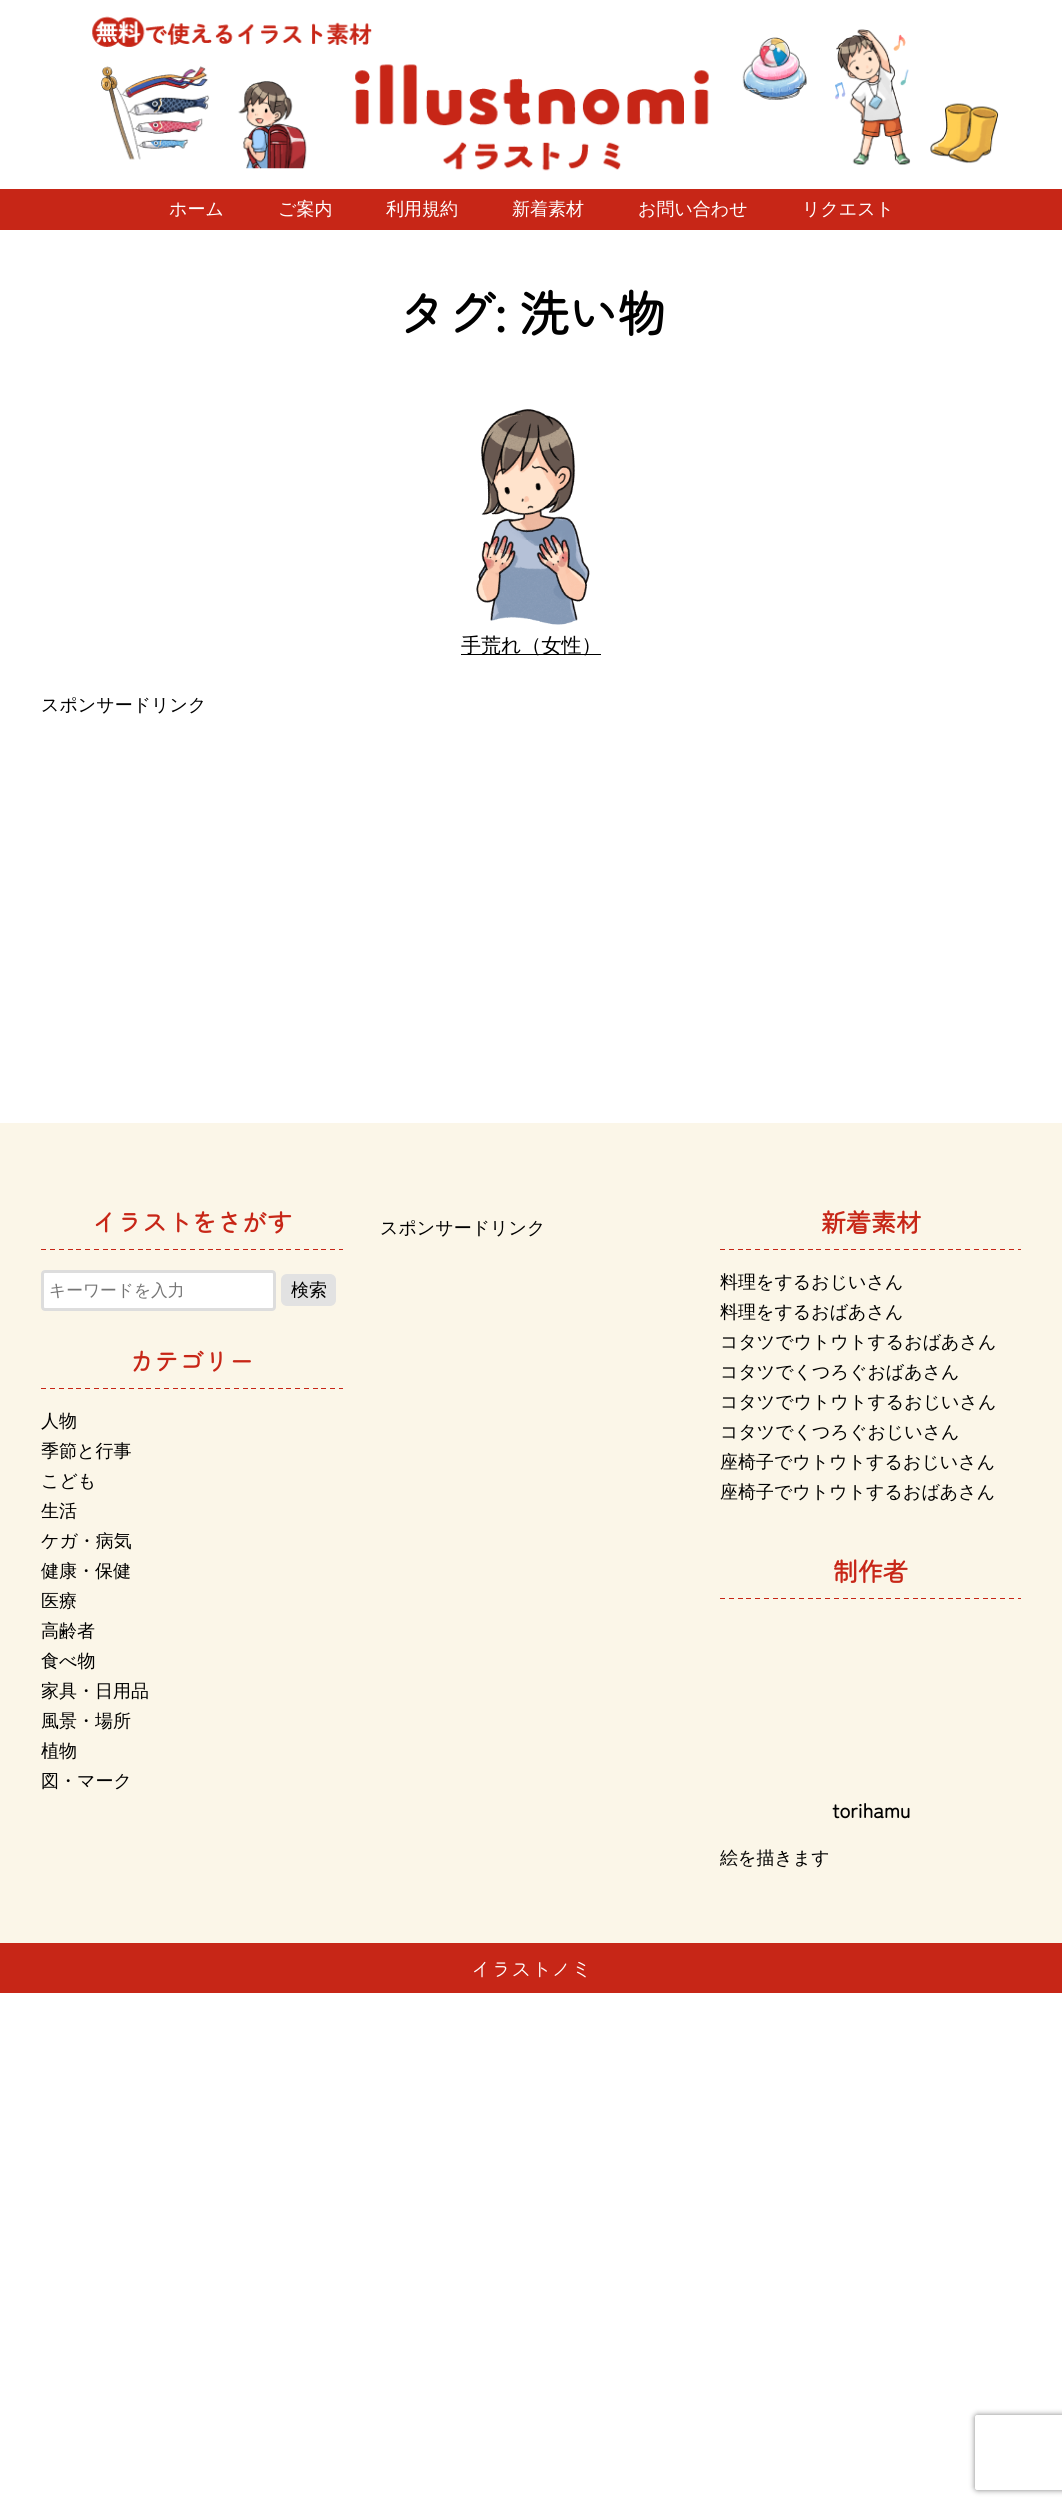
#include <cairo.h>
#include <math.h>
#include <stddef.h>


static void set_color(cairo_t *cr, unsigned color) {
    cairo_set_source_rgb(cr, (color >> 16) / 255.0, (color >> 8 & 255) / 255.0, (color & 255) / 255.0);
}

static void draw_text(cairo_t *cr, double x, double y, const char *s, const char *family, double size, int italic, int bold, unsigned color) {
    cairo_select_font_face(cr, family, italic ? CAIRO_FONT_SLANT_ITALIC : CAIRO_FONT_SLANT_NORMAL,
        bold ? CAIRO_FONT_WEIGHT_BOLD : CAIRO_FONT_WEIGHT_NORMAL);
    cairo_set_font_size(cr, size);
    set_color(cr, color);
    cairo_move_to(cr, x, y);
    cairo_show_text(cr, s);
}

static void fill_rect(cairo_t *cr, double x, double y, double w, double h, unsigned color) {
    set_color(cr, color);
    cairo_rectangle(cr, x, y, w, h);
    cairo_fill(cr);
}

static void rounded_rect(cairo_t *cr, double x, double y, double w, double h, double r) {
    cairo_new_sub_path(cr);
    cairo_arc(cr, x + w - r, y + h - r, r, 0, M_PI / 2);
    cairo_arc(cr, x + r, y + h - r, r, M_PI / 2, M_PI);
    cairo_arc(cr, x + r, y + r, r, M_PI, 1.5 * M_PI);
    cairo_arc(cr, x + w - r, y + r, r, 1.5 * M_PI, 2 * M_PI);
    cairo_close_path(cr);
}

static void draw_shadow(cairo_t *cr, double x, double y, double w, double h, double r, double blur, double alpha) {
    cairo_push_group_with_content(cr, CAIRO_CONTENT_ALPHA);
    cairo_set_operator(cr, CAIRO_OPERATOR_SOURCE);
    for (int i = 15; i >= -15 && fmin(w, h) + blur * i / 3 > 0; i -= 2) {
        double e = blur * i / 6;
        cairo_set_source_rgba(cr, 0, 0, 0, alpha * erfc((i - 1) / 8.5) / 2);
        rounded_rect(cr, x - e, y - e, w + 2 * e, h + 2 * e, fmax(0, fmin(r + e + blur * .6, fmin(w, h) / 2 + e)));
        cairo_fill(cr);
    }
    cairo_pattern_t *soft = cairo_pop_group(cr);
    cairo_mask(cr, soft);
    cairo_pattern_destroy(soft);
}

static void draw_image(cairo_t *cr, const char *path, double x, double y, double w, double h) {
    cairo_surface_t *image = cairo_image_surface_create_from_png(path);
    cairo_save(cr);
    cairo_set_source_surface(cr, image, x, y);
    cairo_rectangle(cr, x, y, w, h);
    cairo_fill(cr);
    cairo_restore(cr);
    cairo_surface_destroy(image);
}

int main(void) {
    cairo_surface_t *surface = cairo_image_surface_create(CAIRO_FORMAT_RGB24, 1062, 2507);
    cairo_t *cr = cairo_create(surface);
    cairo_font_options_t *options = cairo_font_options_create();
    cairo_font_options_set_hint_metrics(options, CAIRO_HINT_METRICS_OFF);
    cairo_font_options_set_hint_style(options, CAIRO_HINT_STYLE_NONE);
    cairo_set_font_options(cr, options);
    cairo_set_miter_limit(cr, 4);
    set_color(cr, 0xFFFFFF);
    cairo_paint(cr);
    draw_image(cr, "assets/img1.png", 92, 16, 907, 155);
    fill_rect(cr, 0, 189, 1062, 41, 0xC72617);
    draw_text(cr, 169, 215, "ホーム", "WenQuanYi Zen Hei Medium", 18, 0, 0, 0xFFFFFF);
    draw_text(cr, 278, 215, "ご案内", "WenQuanYi Zen Hei Medium", 18, 0, 0, 0xFFFFFF);
    draw_text(cr, 386, 215, "利用規約", "WenQuanYi Zen Hei Medium", 18, 0, 0, 0xFFFFFF);
    draw_text(cr, 512, 215, "新着素材", "WenQuanYi Zen Hei Medium", 18, 0, 0, 0xFFFFFF);
    draw_text(cr, 638, 215, "お問い合わせ", "WenQuanYi Zen Hei Medium", 18, 0, 0, 0xFFFFFF);
    draw_text(cr, 802, 215, "リクエスト", "WenQuanYi Zen Hei Medium", 18, 0, 0, 0xFFFFFF);
    draw_text(cr, 397, 332, "タグ: 洗い物", "Zen Maru Gothic", 48.75, 0, 1, 0x000000);
    draw_image(cr, "assets/img2.png", 476, 409, 114, 216);
    fill_rect(cr, 461, 654, 140, 1, 0x000000);
    draw_text(cr, 461, 652, "手荒れ（女性）", "WenQuanYi Zen Hei Medium", 20, 0, 0, 0x000000);
    draw_text(cr, 41, 711, "スポンサードリンク", "WenQuanYi Zen Hei Medium", 18, 0, 0, 0x000000);
    fill_rect(cr, 0, 1123, 1062, 820, 0xFBF6E8);
    draw_image(cr, "assets/img3.png", 41, 1249, 302, 1);
    draw_text(cr, 92, 1232, "イラストをさがす", "Zen Maru Gothic", 25, 0, 1, 0xC72617);
    set_color(cr, 0xFFFFFF);
    rounded_rect(cr, 42.5, 1271.5, 232, 38, 2.5);
    cairo_fill_preserve(cr);
    set_color(cr, 0xDDDDDD);
    cairo_set_line_width(cr, 3);
    cairo_stroke(cr);
    draw_text(cr, 49, 1296, "キーワードを入力", "WenQuanYi Zen Hei Medium", 16.75, 0, 0, 0x757575);
    set_color(cr, 0xE2E2E2);
    rounded_rect(cr, 281, 1274, 55, 32, 6);
    cairo_fill(cr);
    draw_text(cr, 291, 1296, "検索", "WenQuanYi Zen Hei Medium", 18, 0, 0, 0x000000);
    draw_text(cr, 380, 1234, "スポンサードリンク", "WenQuanYi Zen Hei Medium", 18, 0, 0, 0x000000);
    draw_image(cr, "assets/img4.png", 720, 1249, 301, 1);
    draw_text(cr, 821, 1232, "新着素材", "Zen Maru Gothic", 25, 0, 1, 0xC72617);
    draw_text(cr, 720, 1288, "料理をするおじいさん", "WenQuanYi Zen Hei Medium", 18, 0, 0, 0x000000);
    draw_text(cr, 720, 1318, "料理をするおばあさん", "WenQuanYi Zen Hei Medium", 18, 0, 0, 0x000000);
    draw_text(cr, 720, 1348, "コタツでウトウトするおばあさん", "WenQuanYi Zen Hei Medium", 18, 0, 0, 0x000000);
    draw_text(cr, 720, 1378, "コタツでくつろぐおばあさん", "WenQuanYi Zen Hei Medium", 18, 0, 0, 0x000000);
    draw_text(cr, 720, 1408, "コタツでウトウトするおじいさん", "WenQuanYi Zen Hei Medium", 18, 0, 0, 0x000000);
    draw_text(cr, 720, 1438, "コタツでくつろぐおじいさん", "WenQuanYi Zen Hei Medium", 18, 0, 0, 0x000000);
    draw_text(cr, 720, 1468, "座椅子でウトウトするおじいさん", "WenQuanYi Zen Hei Medium", 18, 0, 0, 0x000000);
    draw_text(cr, 720, 1498, "座椅子でウトウトするおばあさん", "WenQuanYi Zen Hei Medium", 18, 0, 0, 0x000000);
    draw_image(cr, "assets/img3.png", 41, 1388, 302, 1);
    draw_text(cr, 129, 1371, "カテゴリー", "Zen Maru Gothic", 25, 0, 1, 0xC72617);
    draw_text(cr, 41, 1427, "人物", "WenQuanYi Zen Hei Medium", 18, 0, 0, 0x000000);
    draw_text(cr, 41, 1457, "季節と行事", "WenQuanYi Zen Hei Medium", 18, 0, 0, 0x000000);
    draw_text(cr, 41, 1487, "こども", "WenQuanYi Zen Hei Medium", 18, 0, 0, 0x000000);
    draw_text(cr, 41, 1517, "生活", "WenQuanYi Zen Hei Medium", 18, 0, 0, 0x000000);
    draw_text(cr, 41, 1547, "ケガ・病気", "WenQuanYi Zen Hei Medium", 18, 0, 0, 0x000000);
    draw_text(cr, 41, 1577, "健康・保健", "WenQuanYi Zen Hei Medium", 18, 0, 0, 0x000000);
    draw_text(cr, 41, 1607, "医療", "WenQuanYi Zen Hei Medium", 18, 0, 0, 0x000000);
    draw_text(cr, 41, 1637, "高齢者", "WenQuanYi Zen Hei Medium", 18, 0, 0, 0x000000);
    draw_text(cr, 41, 1667, "食べ物", "WenQuanYi Zen Hei Medium", 18, 0, 0, 0x000000);
    draw_text(cr, 41, 1697, "家具・日用品", "WenQuanYi Zen Hei Medium", 18, 0, 0, 0x000000);
    draw_text(cr, 41, 1727, "風景・場所", "WenQuanYi Zen Hei Medium", 18, 0, 0, 0x000000);
    draw_text(cr, 41, 1757, "植物", "WenQuanYi Zen Hei Medium", 18, 0, 0, 0x000000);
    draw_text(cr, 41, 1787, "図・マーク", "WenQuanYi Zen Hei Medium", 18, 0, 0, 0x000000);
    draw_image(cr, "assets/img4.png", 720, 1598, 301, 1);
    draw_text(cr, 833, 1581, "制作者", "Zen Maru Gothic", 25, 0, 1, 0xC72617);
    draw_text(cr, 832, 1818, "torihamu", "Zen Maru Gothic", 20, 0, 1, 0x000000);
    draw_text(cr, 720, 1864, "絵を描きます", "WenQuanYi Zen Hei Medium", 18, 0, 0, 0x000000);
    fill_rect(cr, 0, 1943, 1062, 50, 0xC72617);
    draw_text(cr, 471, 1977, "イラストノミ", "Zen Maru Gothic", 20, 0, 0, 0xFFFFFF);
    cairo_save(cr);
    cairo_set_fill_rule(cr, CAIRO_FILL_RULE_EVEN_ODD);
    cairo_new_path(cr);
    cairo_move_to(cr, 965, 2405);
    cairo_line_to(cr, 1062, 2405);
    cairo_line_to(cr, 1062, 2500);
    cairo_line_to(cr, 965, 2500);
    cairo_close_path(cr);
    cairo_move_to(cr, 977.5, 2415);
    cairo_line_to(cr, 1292.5, 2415);
    cairo_curve_to(cr, 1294, 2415, 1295, 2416, 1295, 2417.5);
    cairo_line_to(cr, 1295, 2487.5);
    cairo_curve_to(cr, 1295, 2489, 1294, 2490, 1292.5, 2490);
    cairo_line_to(cr, 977.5, 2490);
    cairo_curve_to(cr, 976, 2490, 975, 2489, 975, 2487.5);
    cairo_line_to(cr, 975, 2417.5);
    cairo_curve_to(cr, 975, 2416, 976, 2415, 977.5, 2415);
    cairo_close_path(cr);
    cairo_clip(cr);
    set_color(cr, 0x808080);
    draw_shadow(cr, 975, 2415, 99, 75, 2.5, 3, 1);
    cairo_restore(cr);
    cairo_surface_write_to_png(surface, "output.png");
    cairo_font_options_destroy(options);
    cairo_destroy(cr);
    cairo_surface_destroy(surface);
    return 0;
}
